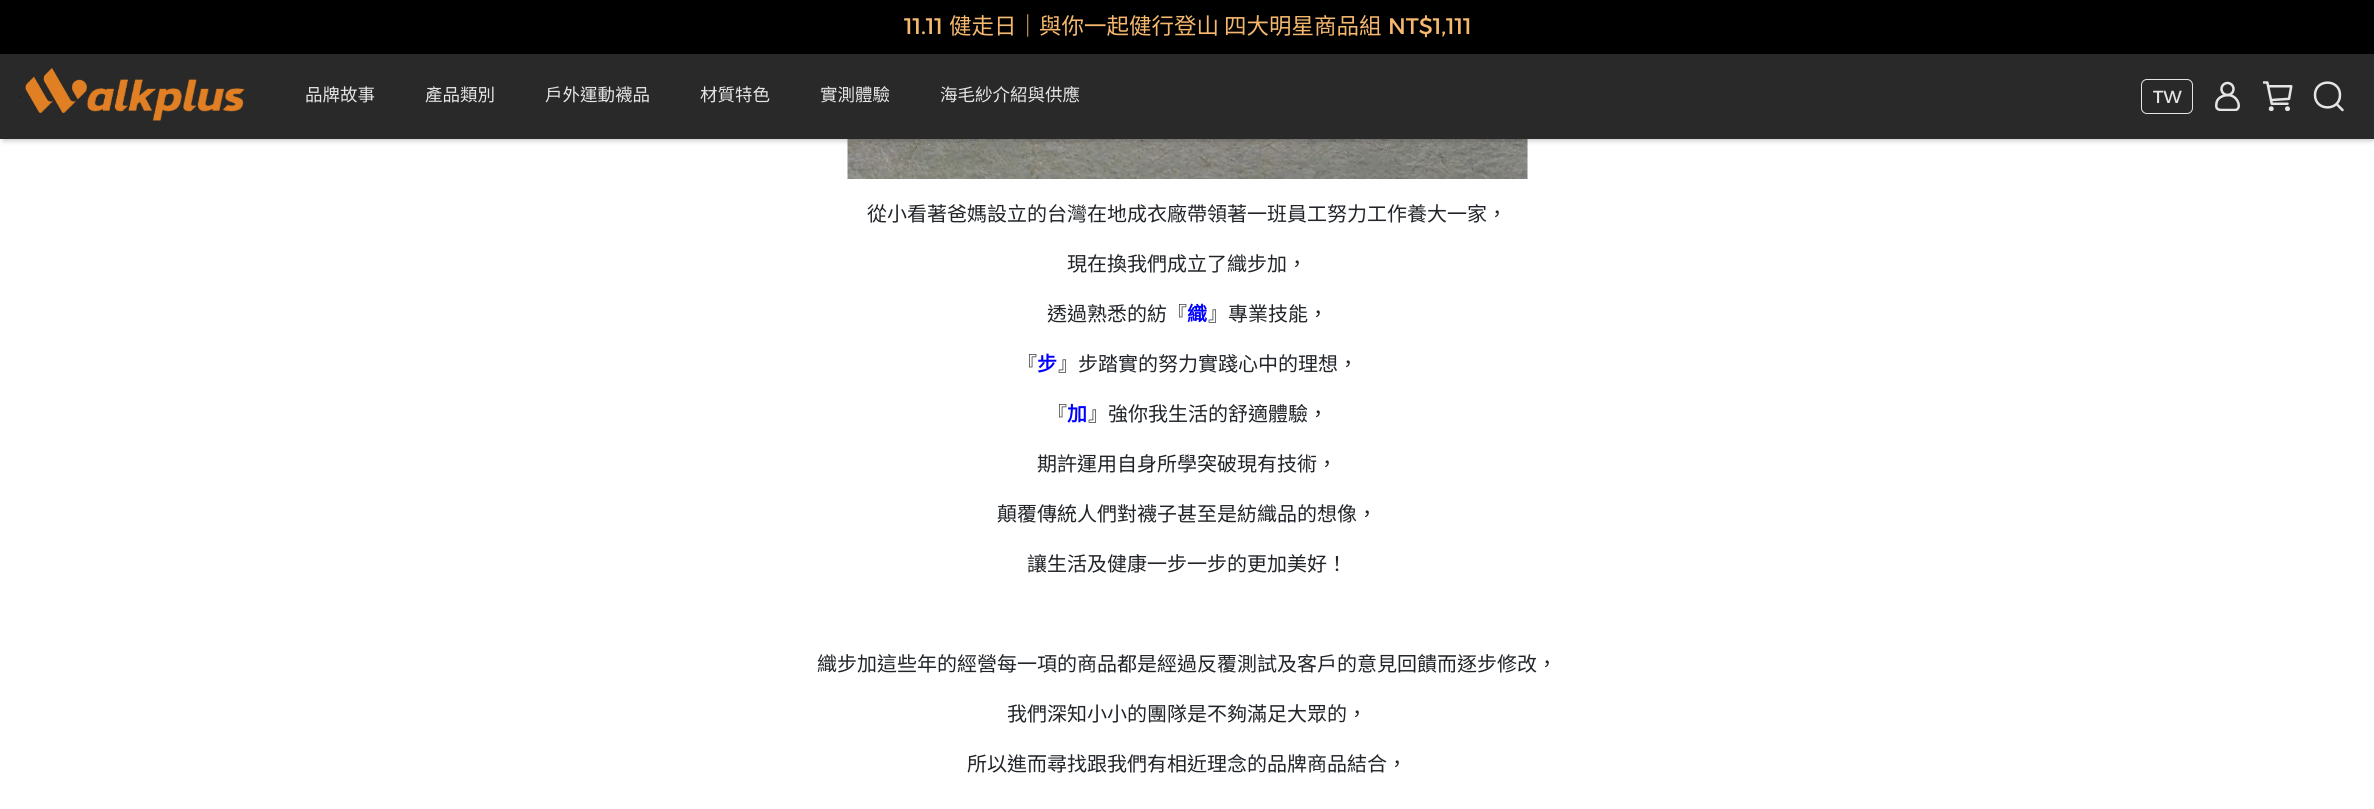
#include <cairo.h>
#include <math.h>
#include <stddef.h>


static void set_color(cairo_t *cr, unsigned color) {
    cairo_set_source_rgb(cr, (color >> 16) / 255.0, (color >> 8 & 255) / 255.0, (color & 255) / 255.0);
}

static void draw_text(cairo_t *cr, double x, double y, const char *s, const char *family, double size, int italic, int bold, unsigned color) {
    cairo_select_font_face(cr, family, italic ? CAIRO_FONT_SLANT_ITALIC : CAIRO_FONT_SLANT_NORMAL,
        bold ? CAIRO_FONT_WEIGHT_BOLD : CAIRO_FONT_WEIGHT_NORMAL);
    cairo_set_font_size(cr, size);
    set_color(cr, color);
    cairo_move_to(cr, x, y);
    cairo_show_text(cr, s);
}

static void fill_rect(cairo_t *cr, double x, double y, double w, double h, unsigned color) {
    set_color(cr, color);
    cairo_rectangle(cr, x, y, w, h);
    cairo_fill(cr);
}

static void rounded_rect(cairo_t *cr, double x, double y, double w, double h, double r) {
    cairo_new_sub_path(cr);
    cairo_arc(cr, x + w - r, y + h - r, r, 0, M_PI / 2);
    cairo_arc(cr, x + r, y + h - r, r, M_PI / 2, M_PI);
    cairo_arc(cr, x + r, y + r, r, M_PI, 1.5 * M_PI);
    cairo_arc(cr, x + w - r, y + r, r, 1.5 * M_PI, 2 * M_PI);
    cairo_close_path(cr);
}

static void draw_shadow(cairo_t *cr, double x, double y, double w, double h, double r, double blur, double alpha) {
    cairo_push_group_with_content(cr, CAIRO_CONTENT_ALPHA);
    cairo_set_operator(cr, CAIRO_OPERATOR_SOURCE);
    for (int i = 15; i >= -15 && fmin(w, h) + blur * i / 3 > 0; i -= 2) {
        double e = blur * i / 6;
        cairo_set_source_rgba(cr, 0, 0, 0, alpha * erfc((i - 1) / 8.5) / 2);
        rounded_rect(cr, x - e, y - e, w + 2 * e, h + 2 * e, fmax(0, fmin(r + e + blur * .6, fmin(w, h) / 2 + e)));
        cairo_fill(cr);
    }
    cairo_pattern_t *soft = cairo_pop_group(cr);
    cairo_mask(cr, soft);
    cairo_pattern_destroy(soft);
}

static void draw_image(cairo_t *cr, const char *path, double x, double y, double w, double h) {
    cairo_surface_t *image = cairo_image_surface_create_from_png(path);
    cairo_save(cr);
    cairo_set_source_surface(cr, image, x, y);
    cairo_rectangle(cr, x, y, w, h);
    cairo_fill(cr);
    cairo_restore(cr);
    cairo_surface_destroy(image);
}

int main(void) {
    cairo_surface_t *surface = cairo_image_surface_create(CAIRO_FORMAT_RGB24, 2374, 809);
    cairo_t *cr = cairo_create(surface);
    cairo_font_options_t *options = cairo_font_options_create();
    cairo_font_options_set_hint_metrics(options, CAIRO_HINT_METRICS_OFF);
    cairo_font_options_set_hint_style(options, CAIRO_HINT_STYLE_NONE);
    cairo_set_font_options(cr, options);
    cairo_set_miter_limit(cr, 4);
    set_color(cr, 0xFFFFFF);
    cairo_paint(cr);
    draw_image(cr, "assets/img3.png", 847, 139, 681, 40);
    set_color(cr, 0x000000);
    draw_shadow(cr, 3, 61, 2370, 80, 0, 2.5, 0.2);
    fill_rect(cr, 0, 0, 2374, 54, 0x000000);
    draw_text(cr, 904, 34, "11.11", "Alexandria", 22.5, 0, 0, 0xF6B86E);
    draw_text(cr, 949, 34, "健走日｜與你一起健行登山 四大明星商品組", "Noto Sans CJK TC", 22.5, 0, 0, 0xF6B86E);
    draw_text(cr, 1388, 34, "NT$1,111", "Alexandria", 22.5, 0, 0, 0xF6B86E);
    fill_rect(cr, 0, 54, 2374, 85, 0x292929);
    draw_image(cr, "assets/img1.png", 18, 68, 227, 53);
    draw_text(cr, 305, 101, "品牌故事", "Noto Sans CJK TC", 17.5, 0, 0, 0xE5E5E5);
    draw_text(cr, 425, 101, "產品類別", "Noto Sans CJK TC", 17.5, 0, 0, 0xE5E5E5);
    draw_text(cr, 545, 101, "戶外運動襪品", "Noto Sans CJK TC", 17.5, 0, 0, 0xE5E5E5);
    draw_text(cr, 700, 101, "材質特色", "Noto Sans CJK TC", 17.5, 0, 0, 0xE5E5E5);
    draw_text(cr, 820, 101, "實測體驗", "Noto Sans CJK TC", 17.5, 0, 0, 0xE5E5E5);
    draw_text(cr, 940, 101, "海毛紗介紹與供應", "Noto Sans CJK TC", 17.5, 0, 0, 0xE5E5E5);
    rounded_rect(cr, 2141.5, 79.5, 51, 34, 5.5);
    cairo_set_line_width(cr, 1);
    cairo_stroke(cr);
    draw_text(cr, 2153, 103, "TW", "Alexandria", 17.5, 0, 0, 0xE5E5E5);
    cairo_new_path(cr);
    cairo_arc(cr, 2227.5, 89, 6, 0, 2 * M_PI);
    cairo_set_line_width(cr, 2.5);
    cairo_stroke(cr);
    cairo_save(cr);
    cairo_rectangle(cr, 2213, 81, 30, 30);
    cairo_clip(cr);
    cairo_new_path(cr);
    cairo_move_to(cr, 2234.5, 110);
    cairo_line_to(cr, 2225, 110);
    cairo_curve_to(cr, 2219.5, 110, 2215, 110.5, 2216.5, 103);
    cairo_curve_to(cr, 2217, 99.5, 2220, 97, 2223, 96);
    cairo_curve_to(cr, 2237.5, 90.5, 2243.5, 110.5, 2234.5, 110);
    cairo_close_path(cr);
    cairo_stroke(cr);
    cairo_restore(cr);
    draw_image(cr, "assets/img2.png", 2263, 81, 30, 30);
    cairo_new_path(cr);
    cairo_move_to(cr, 2340, 95);
    cairo_curve_to(cr, 2340, 111.5, 2315, 111.5, 2315, 95);
    cairo_curve_to(cr, 2315, 78.5, 2340, 78.5, 2340, 95);
    cairo_close_path(cr);
    cairo_move_to(cr, 2337.5, 105);
    cairo_line_to(cr, 2342.5, 110);
    cairo_set_line_cap(cr, CAIRO_LINE_CAP_ROUND);
    cairo_set_line_join(cr, CAIRO_LINE_JOIN_ROUND);
    cairo_stroke(cr);
    draw_text(cr, 867, 221, "從小看著爸媽設立的台灣在地成衣廠帶領著一班員工努力工作養大一家，", "Noto Sans CJK TC", 20, 0, 0, 0x212529);
    draw_text(cr, 1067, 271, "現在換我們成立了織步加，", "Noto Sans CJK TC", 20, 0, 0, 0x212529);
    draw_text(cr, 1047, 321, "透過熟悉的紡『", "Noto Sans CJK TC", 20, 0, 0, 0x212529);
    draw_text(cr, 1187, 321, "織", "Noto Sans CJK TC", 20, 0, 1, 0x0000FF);
    draw_text(cr, 1208, 321, "』專業技能，", "Noto Sans CJK TC", 20, 0, 0, 0x212529);
    draw_text(cr, 1017, 371, "『", "Noto Sans CJK TC", 20, 0, 0, 0x212529);
    draw_text(cr, 1037, 371, "步", "Noto Sans CJK TC", 20, 0, 1, 0x0000FF);
    draw_text(cr, 1058, 371, "』步踏實的努力實踐心中的理想，", "Noto Sans CJK TC", 20, 0, 0, 0x212529);
    draw_text(cr, 1047, 421, "『", "Noto Sans CJK TC", 20, 0, 0, 0x212529);
    draw_text(cr, 1067, 421, "加", "Noto Sans CJK TC", 20, 0, 1, 0x0000FF);
    draw_text(cr, 1088, 421, "』強你我生活的舒適體驗，", "Noto Sans CJK TC", 20, 0, 0, 0x212529);
    draw_text(cr, 1037, 471, "期許運用自身所學突破現有技術，", "Noto Sans CJK TC", 20, 0, 0, 0x212529);
    draw_text(cr, 997, 521, "顛覆傳統人們對襪子甚至是紡織品的想像，", "Noto Sans CJK TC", 20, 0, 0, 0x212529);
    draw_text(cr, 1027, 571, "讓生活及健康一步一步的更加美好！", "Noto Sans CJK TC", 20, 0, 0, 0x212529);
    draw_text(cr, 817, 671, "織步加這些年的經營每一項的商品都是經過反覆測試及客戶的意見回饋而逐步修改，", "Noto Sans CJK TC", 20, 0, 0, 0x212529);
    draw_text(cr, 1007, 721, "我們深知小小的團隊是不夠滿足大眾的，", "Noto Sans CJK TC", 20, 0, 0, 0x212529);
    draw_text(cr, 967, 771, "所以進而尋找跟我們有相近理念的品牌商品結合，", "Noto Sans CJK TC", 20, 0, 0, 0x212529);
    cairo_surface_write_to_png(surface, "output.png");
    cairo_font_options_destroy(options);
    cairo_destroy(cr);
    cairo_surface_destroy(surface);
    return 0;
}
